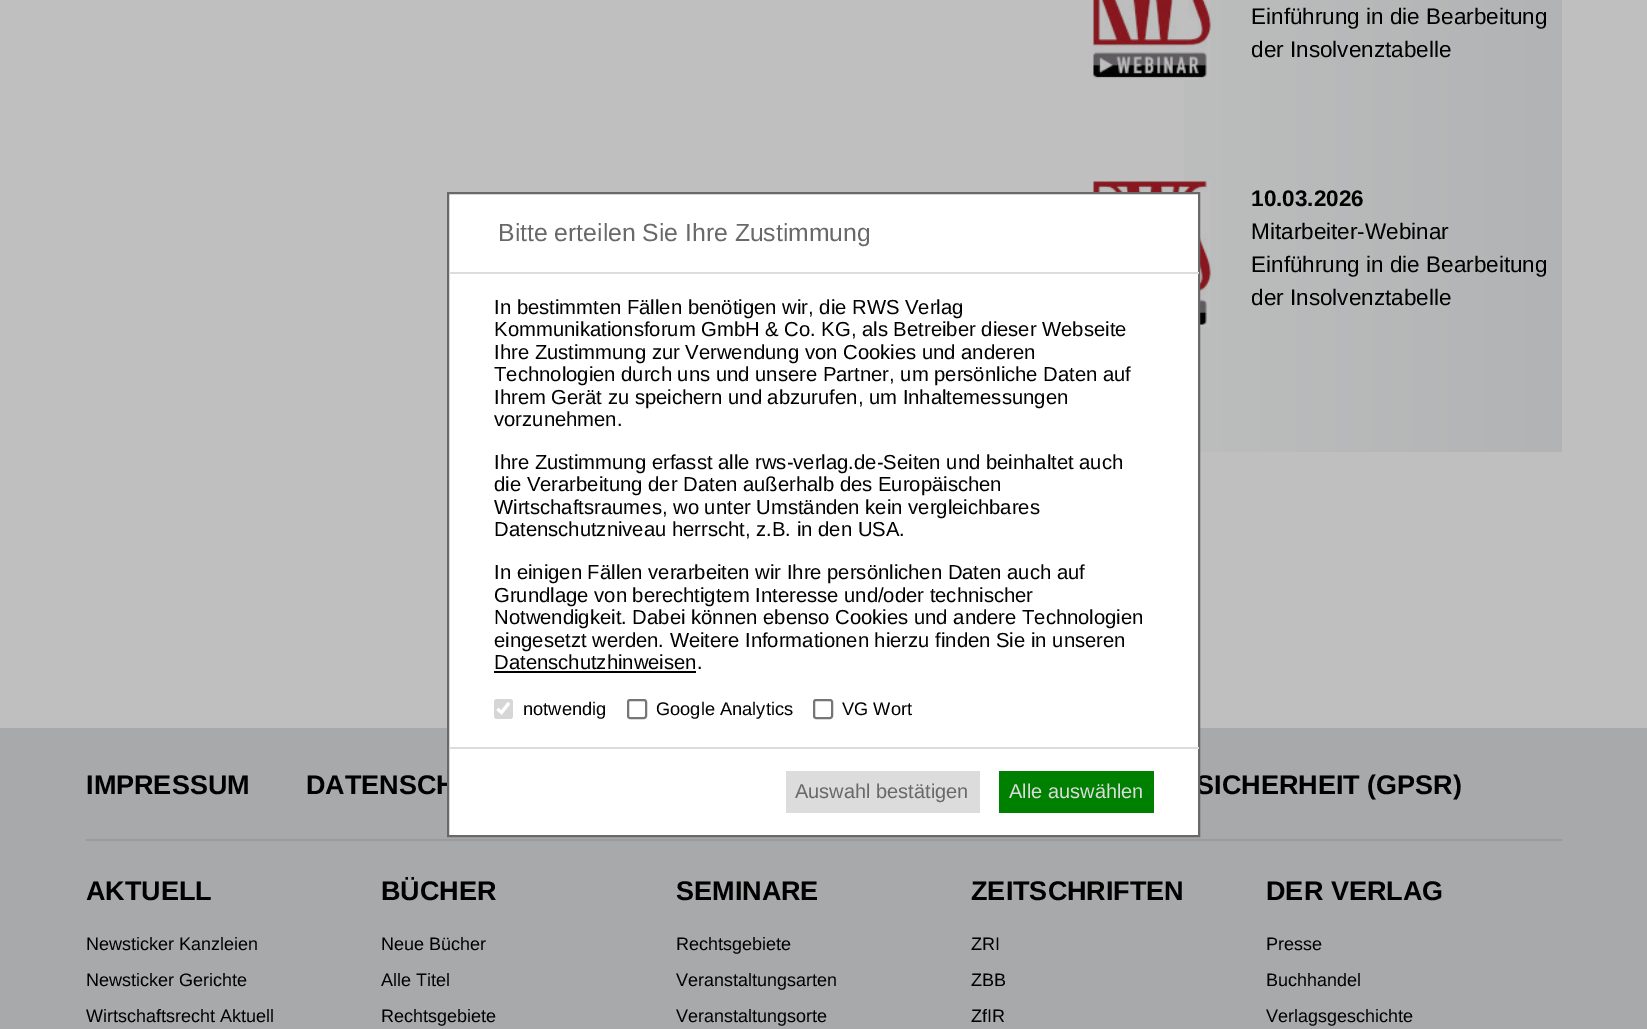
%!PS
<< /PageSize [1647 1029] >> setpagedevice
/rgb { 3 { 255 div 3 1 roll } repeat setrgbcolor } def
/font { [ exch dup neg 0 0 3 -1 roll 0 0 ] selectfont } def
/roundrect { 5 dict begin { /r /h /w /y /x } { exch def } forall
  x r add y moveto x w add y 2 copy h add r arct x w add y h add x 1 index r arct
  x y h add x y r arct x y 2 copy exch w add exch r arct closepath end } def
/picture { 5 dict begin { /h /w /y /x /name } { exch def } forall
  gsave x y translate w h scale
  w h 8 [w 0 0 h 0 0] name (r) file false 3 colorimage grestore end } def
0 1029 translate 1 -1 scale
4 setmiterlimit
191 191 191 rgb
0 0 1647 1029 rectfill
gsave 1184 0 moveto 1562 0 lineto 1562 452 lineto 1184 452 lineto closepath clip newpath
<< /ShadingType 2 /ColorSpace /DeviceRGB /Coords [1094 25 1562 25] /Extend [true true] /Function << /FunctionType 2 /Domain [0 1] /C0 [0.749 0.749 0.749] /C1 [0.698 0.702 0.706] /N 1 >> >> shfill grestore
(img/1.rgb) 1093 0 118 80 picture
(img/2.rgb) 1093 181 118 146 picture
168 169 170 rgb
0 728 1647 301 rectfill
155 155 155 rgb
86 839 1476 2 rectfill
/LiberationSans-Regular 22.5 font
0 0 0 rgb
1251 24 moveto (Einführung in die Bearbeitung) show
1251 57 moveto (der Insolvenztabelle) show
/LiberationSans-Bold 22.5 font
1251 206 moveto (10.03.2026) show
/LiberationSans-Regular 22.5 font
[
  [(Mitarbeiter-Webinar) 1251 239]
  [(Einführung in die Bearbeitung) 1251 272]
  [(der Insolvenztabelle) 1251 305]
] { aload pop moveto show } forall
/LiberationSans-Bold 27 font
[
  [(IMPRESSUM) 86 794]
  [(DATENSCH) 306 794]
  [(SICHERHEIT \(GPSR\)) 1196 794]
] { aload pop moveto show } forall
255 255 255 rgb
448 193 moveto 1199 193 lineto 1199 836 lineto 448 836 lineto closepath gsave fill grestore
105 105 105 rgb
2 setlinewidth
stroke
/LiberationSans-Regular 18.25 font
0 0 0 rgb
842 715 moveto (VG Wort) show
118 118 118 rgb
814 700 18 18 2 roundrect stroke
0 0 0 rgb
656 715 moveto (Google Analytics) show
118 118 118 rgb
628 700 18 18 2 roundrect stroke
0 0 0 rgb
523 715 moveto (notwendig) show
214 214 214 rgb
494 699 19 20 3 roundrect fill
255 255 255 rgb
3.1 setlinewidth
497.5 709 moveto 501.5 712.5 lineto 509 703 lineto stroke
/LiberationSans-Regular 20.25 font
0 0 0 rgb
494 669 moveto (Datenschutzhinweisen.) show
494 671 202 2 rectfill
[
  [(eingesetzt werden. Weitere Informationen hierzu finden Sie in unseren) 494 647]
  [(Notwendigkeit. Dabei können ebenso Cookies und andere Technologien) 494 624]
  [(Grundlage von berechtigtem Interesse und/oder technischer) 494 602]
  [(In einigen Fällen verarbeiten wir Ihre persönlichen Daten auch auf) 494 579]
  [(Datenschutzniveau herrscht, z.B. in den USA.) 494 536]
  [(Wirtschaftsraumes, wo unter Umständen kein vergleichbares) 494 514]
  [(die Verarbeitung der Daten außerhalb des Europäischen) 494 491]
  [(Ihre Zustimmung erfasst alle rws-verlag.de-Seiten und beinhaltet auch) 494 469]
  [(vorzunehmen.) 494 426]
  [(Ihrem Gerät zu speichern und abzurufen, um Inhaltemessungen) 494 404]
  [(Technologien durch uns und unsere Partner, um persönliche Daten auf) 494 381]
  [(Ihre Zustimmung zur Verwendung von Cookies und anderen) 494 359]
  [(Kommunikationsforum GmbH & Co. KG, als Betreiber dieser Webseite) 494 336]
  [(In bestimmten Fällen benötigen wir, die RWS Verlag) 494 314]
] { aload pop moveto show } forall
0 128 0 rgb
999 771 155 42 rectfill
/LiberationSans-Regular 20 font
220 220 220 rgb
1009 798 moveto (Alle auswählen) show
786 771 194 42 rectfill
105 105 105 rgb
795 798 moveto (Auswahl bestätigen) show
/LiberationSans-Regular 24.75 font
498 241 moveto (Bitte erteilen Sie Ihre Zustimmung) show
220 220 220 rgb
449 747 750 2 rectfill
449 272 750 2 rectfill
/LiberationSans-Bold 27 font
0 0 0 rgb
86 900 moveto (AKTUELL) show
/LiberationSans-Regular 18 font
[
  [(Newsticker Kanzleien) 86 950]
  [(Newsticker Gerichte) 86 986]
  [(Wirtschaftsrecht Aktuell) 86 1022]
] { aload pop moveto show } forall
/LiberationSans-Bold 27 font
381 900 moveto (BÜCHER) show
/LiberationSans-Regular 18 font
[
  [(Neue Bücher) 381 950]
  [(Alle Titel) 381 986]
  [(Rechtsgebiete) 381 1022]
] { aload pop moveto show } forall
/LiberationSans-Bold 27 font
676 900 moveto (SEMINARE) show
/LiberationSans-Regular 18 font
[
  [(Rechtsgebiete) 676 950]
  [(Veranstaltungsarten) 676 986]
  [(Veranstaltungsorte) 676 1022]
] { aload pop moveto show } forall
/LiberationSans-Bold 27 font
971 900 moveto (ZEITSCHRIFTEN) show
/LiberationSans-Regular 18 font
[
  [(ZRI) 971 950]
  [(ZBB) 971 986]
  [(ZfIR) 971 1022]
] { aload pop moveto show } forall
/LiberationSans-Bold 27 font
1266 900 moveto (DER VERLAG) show
/LiberationSans-Regular 18 font
[
  [(Presse) 1266 950]
  [(Buchhandel) 1266 986]
  [(Verlagsgeschichte) 1266 1022]
] { aload pop moveto show } forall
showpage
